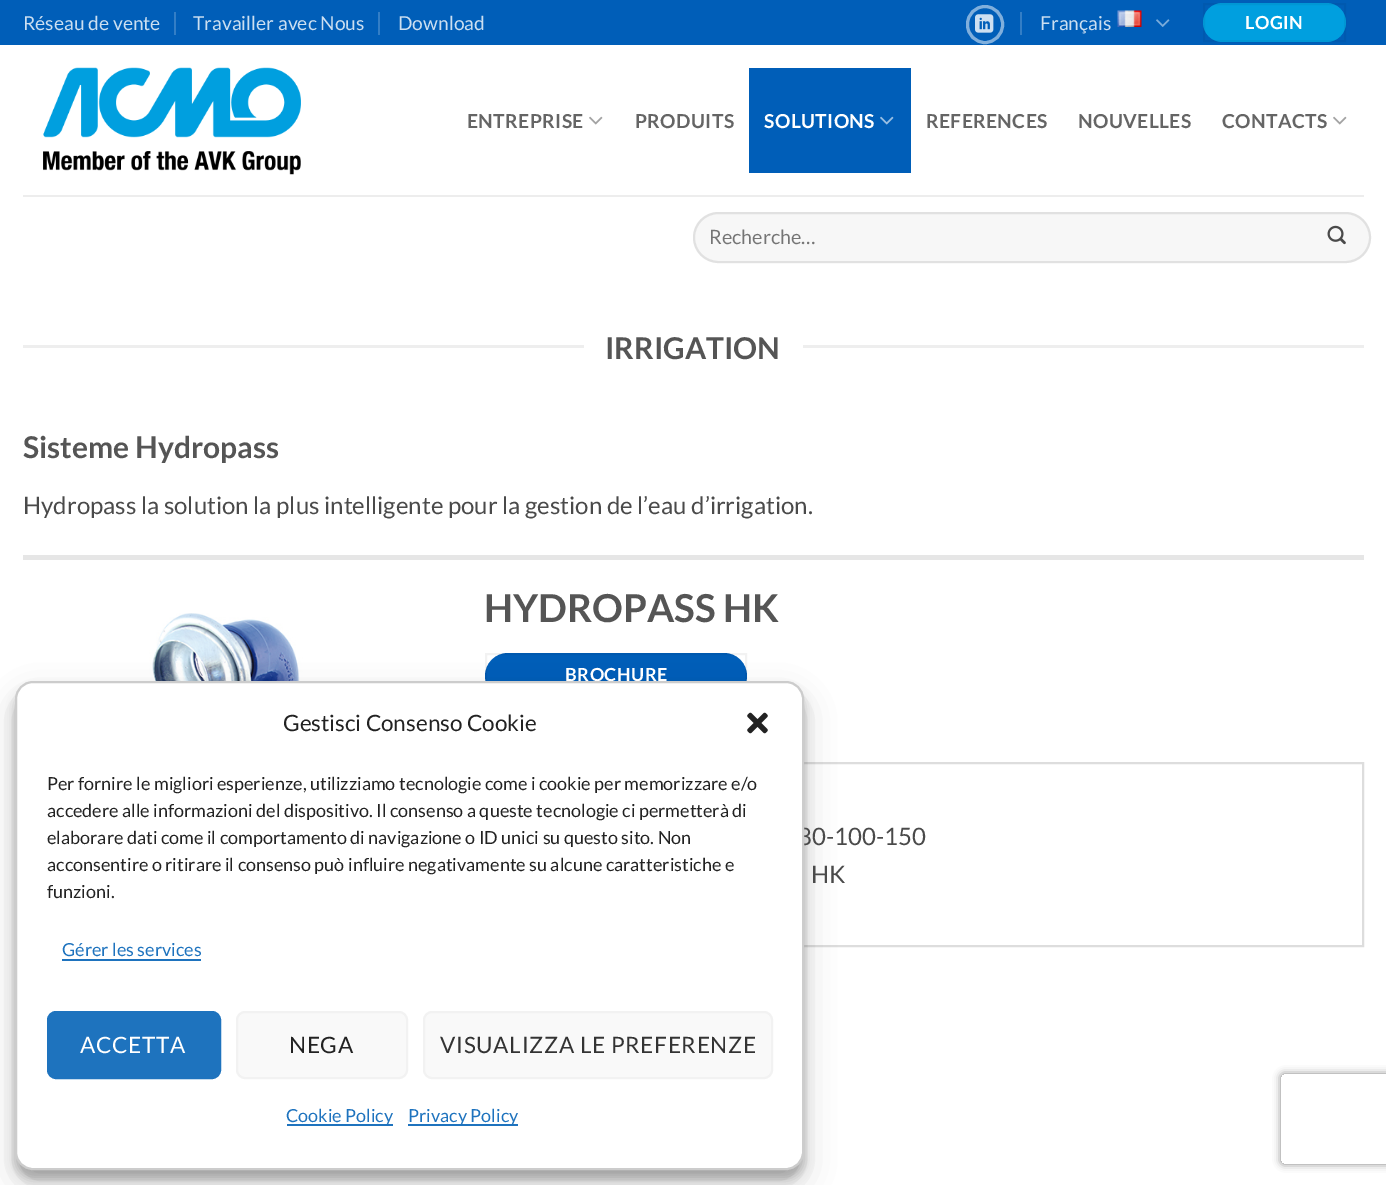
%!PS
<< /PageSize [1386 1185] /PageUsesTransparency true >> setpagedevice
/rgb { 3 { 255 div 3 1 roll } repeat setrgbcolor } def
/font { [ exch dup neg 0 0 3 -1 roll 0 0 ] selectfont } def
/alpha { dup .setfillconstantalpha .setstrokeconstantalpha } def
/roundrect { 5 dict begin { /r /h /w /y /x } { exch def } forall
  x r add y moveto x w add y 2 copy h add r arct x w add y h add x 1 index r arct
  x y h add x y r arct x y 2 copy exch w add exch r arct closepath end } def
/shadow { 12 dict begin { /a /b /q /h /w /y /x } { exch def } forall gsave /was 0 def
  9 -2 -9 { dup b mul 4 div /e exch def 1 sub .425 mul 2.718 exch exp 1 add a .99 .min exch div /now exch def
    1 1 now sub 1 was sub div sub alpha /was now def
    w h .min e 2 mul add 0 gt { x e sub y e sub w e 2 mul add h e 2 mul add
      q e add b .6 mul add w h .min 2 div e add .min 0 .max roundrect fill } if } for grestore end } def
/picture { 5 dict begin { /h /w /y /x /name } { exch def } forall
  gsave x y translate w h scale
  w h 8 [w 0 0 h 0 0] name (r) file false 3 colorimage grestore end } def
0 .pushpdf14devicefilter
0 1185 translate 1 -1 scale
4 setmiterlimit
255 255 255 rgb
0 0 1386 1185 rectfill
[
  [0 0 1386 45 0 94 184]
  [174 12 2 23 51 126 198]
  [378 12 2 23 51 126 198]
] { aload pop rgb rectfill } forall
128 175 220 rgb
3 setlinewidth
967.5 6.5 35 36 17.5 roundrect stroke
(img/1.rgb) 975 14 19 19 picture
51 126 198 rgb
1020 12 2 23 rectfill
(img/2.rgb) 1117 10 25 17 picture
(img/3.rgb) 1156 19 14 8 picture
0 159 223 rgb
1203 3 143 39 19.5 roundrect fill
0.05 alpha
0 0 0 rgb
2 setlinewidth
1204 4 141 37 rectstroke
1 alpha
(img/4.rgb) 43 67 258 108 picture
(img/5.rgb) 589 116 14 9 picture
0 94 184 rgb
749 68 162 105 rectfill
(img/6.rgb) 880 116 14 9 picture
(img/5.rgb) 1333 116 14 9 picture
237 237 237 rgb
23 195 1341 2 rectfill
247 247 247 rgb
693 212 678 51 25.5 roundrect fill
0.09 alpha
0 0 0 rgb
694 213 676 49 24.5 roundrect stroke
1 alpha
(img/7.rgb) 1327 225 19 20 picture
[
  [23 345 561 3 238 238 238]
  [803 345 561 3 238 238 238]
  [23 555 1341 5 230 230 230]
] { aload pop rgb rectfill } forall
(img/8.rgb) 98 613 270 68 picture
0 94 184 rgb
485 653 262 46 23 roundrect fill
0.05 alpha
0 0 0 rgb
486 654 260 44 rectstroke
1 alpha
221 221 221 rgb
705 763 658 183 rectstroke
0 0 0 rgb
15 690 789 489 18 4.5 0.23 shadow
15 696 789 489 18 15 0.19 shadow
gsave
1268 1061 moveto 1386 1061 lineto 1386 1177 lineto 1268 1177 lineto closepath 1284 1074 moveto 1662 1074 lineto 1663.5 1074 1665 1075.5 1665 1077 curveto 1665 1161 lineto 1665 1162.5 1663.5 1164 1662 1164 curveto 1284 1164 lineto 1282.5 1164 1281 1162.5 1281 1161 curveto 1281 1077 lineto 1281 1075.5 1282.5 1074 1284 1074 curveto closepath eoclip newpath
128 128 128 rgb
1281 1074 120 90 3 4 1 shadow
grestore
/Lato-Regular 19.25 font
204 223 241 rgb
[
  [(Réseau de vente) 23 30]
  [(Travailler avec Nous) 193 30]
  [(Download) 398 30]
  [(Français) 1040 30]
] { aload pop moveto show } forall
/Lato-Bold 18 font
255 255 255 rgb
1245 29 moveto 0.5 0 (LOGIN) ashow
/Lato-Bold 19.25 font
101 101 101 rgb
467 128 moveto 0.4 0 (ENTREPRISE) ashow
635 128 moveto 0.4 0 (PRODUITS) ashow
255 255 255 rgb
764 128 moveto 0.4 0 (SOLUTIONS) ashow
101 101 101 rgb
926 128 moveto 0.4 0 (REFERENCES) ashow
1078 128 moveto 0.4 0 (NOUVELLES) ashow
1222 128 moveto 0.4 0 (CONTACTS) ashow
/Lato-Regular 19.75 font
117 117 117 rgb
709 244 moveto (Recherche…) show
/Lato-Bold 30 font
85 85 85 rgb
605 359 moveto (IRRIGATION) show
23 458 moveto (Sisteme Hydropass) show
/Lato-Regular 24 font
74 74 74 rgb
23 514 moveto (Hydropass la solution la plus intelligente pour la gestion de l’eau d’irrigation.) show
/Lato-Bold 38.5 font
85 85 85 rgb
484 622 moveto (HYDROPASS HK) show
/Lato-Bold 18 font
255 255 255 rgb
565 681 moveto 0.5 0 (BROCHURE) ashow
/Lato-Regular 24 font
74 74 74 rgb
798 845 moveto (80-100-150) show
811 883 moveto (HK) show
255 255 255 rgb
16 682 787 487 17 roundrect gsave fill grestore
204 204 204 rgb
stroke
/Lato-Regular 22.5 font
34 34 34 rgb
283 731 moveto (Gestisci Consenso Cookie) show
(img/9.rgb) 747 712 21 22 picture
/Lato-Regular 18 font
[
  [(Per fornire le migliori esperienze, utilizziamo tecnologie come i cookie per memorizzare e/o) 47 790]
  [(accedere alle informazioni del dispositivo. Il consenso a queste tecnologie ci permetterà di) 47 817]
  [(elaborare dati come il comportamento di navigazione o ID unici su questo sito. Non) 47 844]
  [(acconsentire o ritirare il consenso può influire negativamente su alcune caratteristiche e) 47 871]
  [(funzioni.) 47 898]
] { aload pop moveto show } forall
30 115 190 rgb
62 956 moveto (Gérer les services) show
62 959 139 2 rectfill
48 1012 172 66 8 roundrect gsave fill grestore
stroke
/Lato-Regular 22.5 font
255 255 255 rgb
80 1053 moveto 0.7 0 (ACCETTA) ashow
249 249 249 rgb
237 1012 170 66 8 roundrect gsave fill grestore
242 242 242 rgb
stroke
34 34 34 rgb
289 1053 moveto 0.7 0 (NEGA) ashow
249 249 249 rgb
424 1012 348 66 8 roundrect gsave fill grestore
242 242 242 rgb
stroke
51 51 51 rgb
440 1053 moveto 0.7 0 (VISUALIZZA LE PREFERENZE) ashow
30 115 190 rgb
287 1124 106 2 rectfill
/Lato-Regular 18 font
286 1122 moveto (Cookie Policy) show
408 1124 110 2 rectfill
408 1122 moveto (Privacy Policy) show
.poppdf14devicefilter showpage
